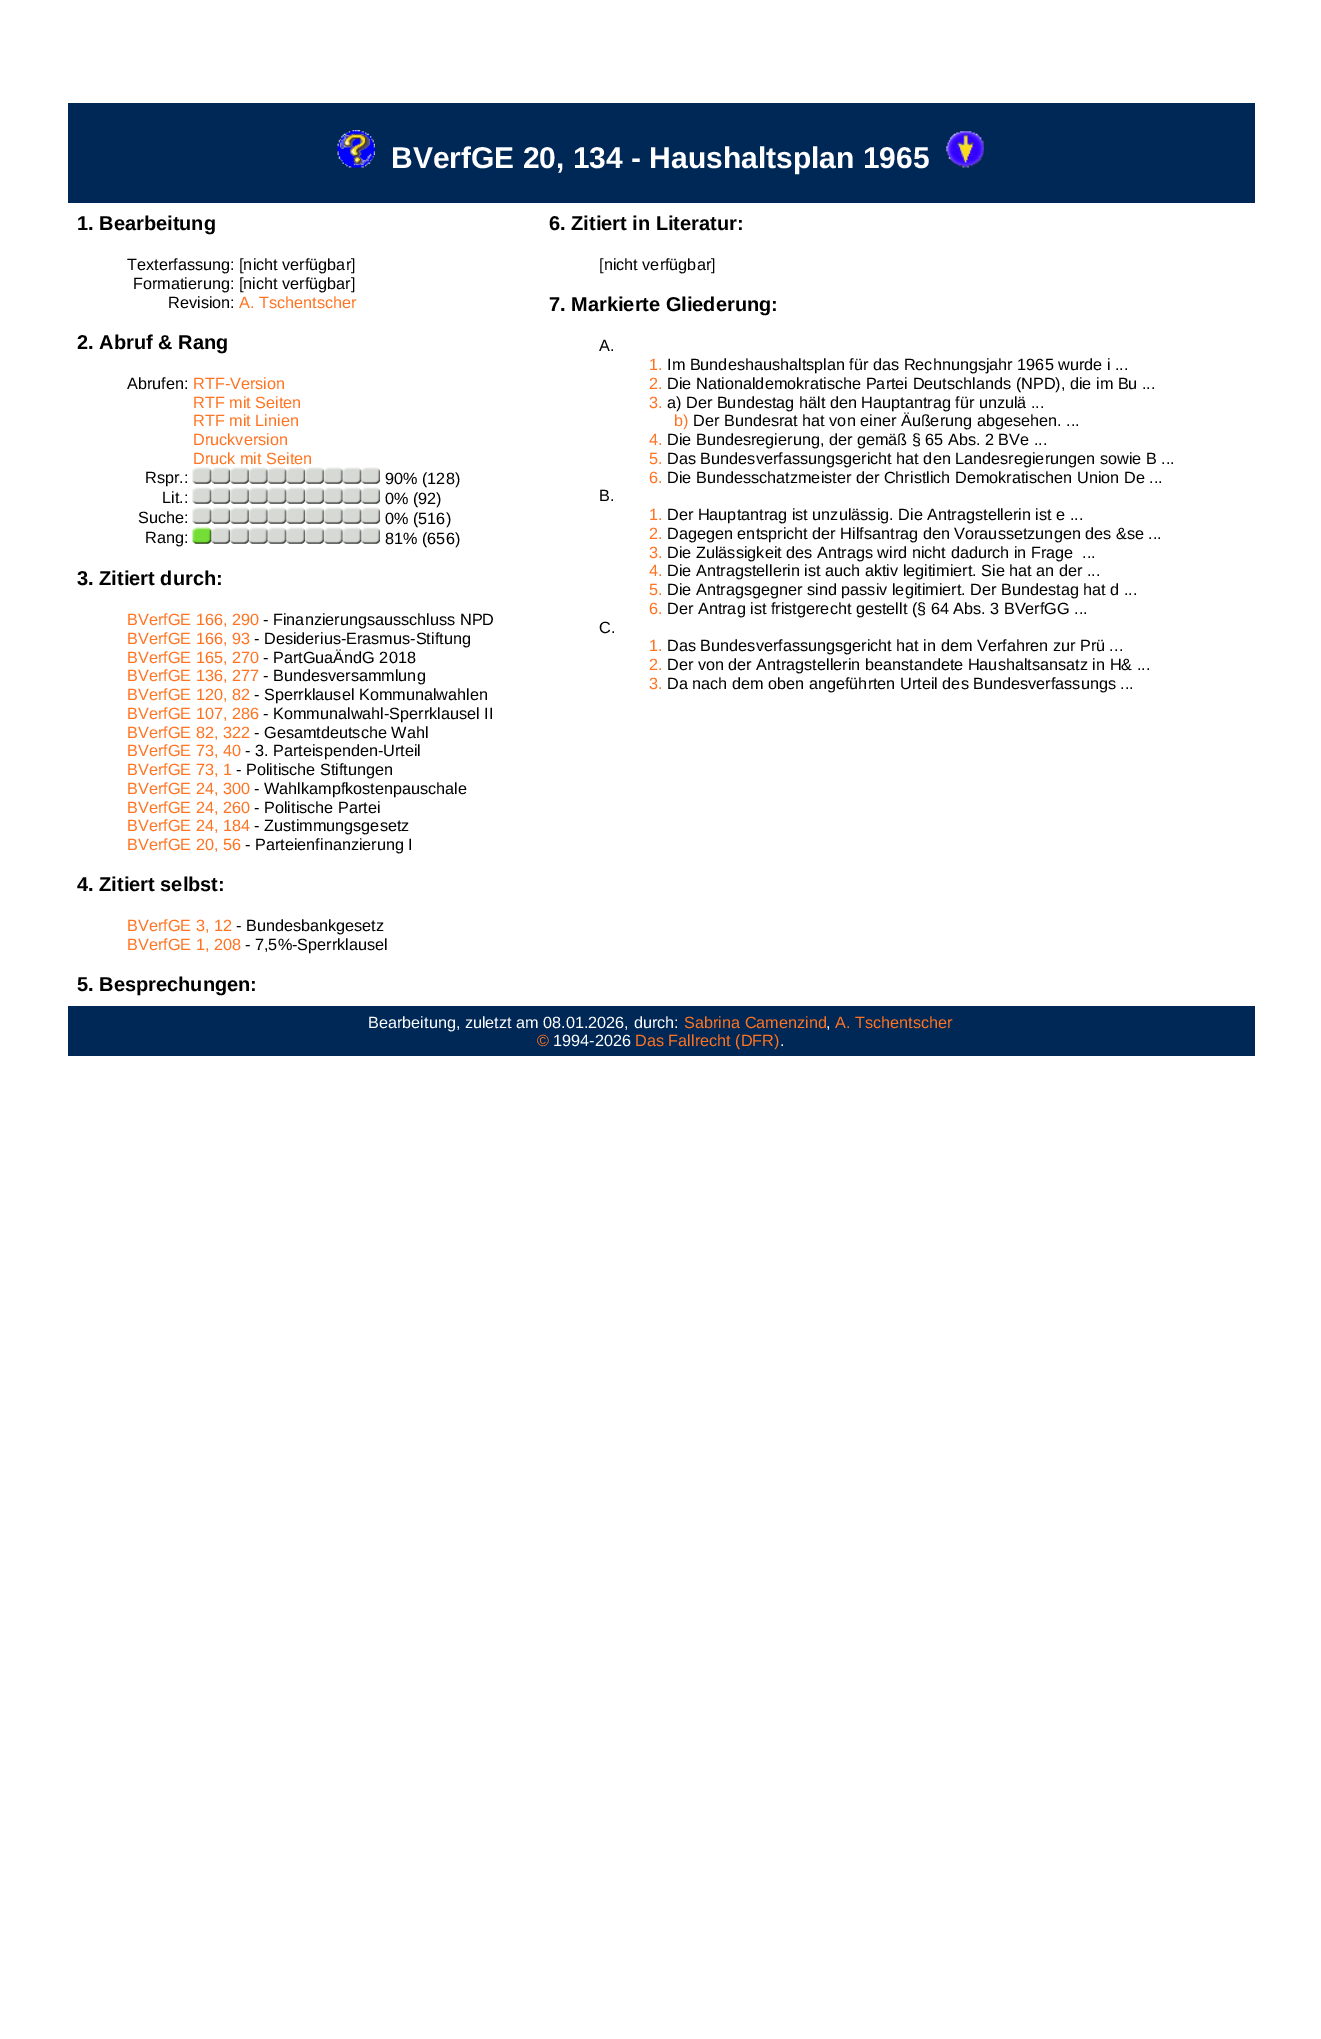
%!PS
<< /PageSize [1321 2039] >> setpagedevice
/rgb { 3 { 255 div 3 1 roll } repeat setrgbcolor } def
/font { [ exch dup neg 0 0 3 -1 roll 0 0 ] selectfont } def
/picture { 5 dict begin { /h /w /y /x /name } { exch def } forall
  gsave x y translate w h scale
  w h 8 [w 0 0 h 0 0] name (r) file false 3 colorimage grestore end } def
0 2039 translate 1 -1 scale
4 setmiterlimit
255 255 255 rgb
0 0 1321 2039 rectfill
0 40 86 rgb
68 103 1187 100 rectfill
(img/1.rgb) 337 130 38 38 picture
(img/2.rgb) 946 131 38 37 picture
(img/3.rgb) 192 467 188 17 picture
(img/3.rgb) 192 487 188 17 picture
(img/3.rgb) 192 507 188 17 picture
(img/4.rgb) 192 527 188 17 picture
68 1006 1187 50 rectfill
/LiberationSans-Bold 30 font
255 255 255 rgb
391 168 moveto (BVerfGE 20, 134 - Haushaltsplan 1965) show
/LiberationSans-Bold 20 font
0 0 0 rgb
77 230 moveto (1. Bearbeitung) show
/LiberationSans-Regular 16.25 font
[
  [(Texterfassung: [nicht verfügbar]) 127 270]
  [(Formatierung: [nicht verfügbar]) 133 289]
  [(Revision:) 168 308]
] { aload pop moveto show } forall
255 115 33 rgb
239 308 moveto (A. Tschentscher) show
/LiberationSans-Bold 20 font
0 0 0 rgb
77 349 moveto (2. Abruf & Rang) show
/LiberationSans-Regular 16.25 font
127 389 moveto (Abrufen:) show
255 115 33 rgb
[
  [(RTF-Version) 193 389]
  [(RTF mit Seiten) 193 408]
  [(RTF mit Linien) 193 426]
  [(Druckversion) 193 445]
  [(Druck mit Seiten) 193 464]
] { aload pop moveto show } forall
0 0 0 rgb
[
  [(Rspr.:) 145 483]
  [(90% \(128\)) 385 484]
  [(Lit.:) 162 503]
  [(0% \(92\)) 385 504]
  [(Suche:) 138 523]
  [(0% \(516\)) 385 524]
  [(Rang:) 145 543]
  [(81% \(656\)) 385 544]
] { aload pop moveto show } forall
/LiberationSans-Bold 20 font
77 585 moveto (3. Zitiert durch:) show
/LiberationSans-Regular 16.25 font
255 115 33 rgb
127 625 moveto (BVerfGE 166, 290) show
0 0 0 rgb
263 625 moveto (- Finanzierungsausschluss NPD) show
255 115 33 rgb
127 644 moveto (BVerfGE 166, 93) show
0 0 0 rgb
254 644 moveto (- Desiderius-Erasmus-Stiftung) show
255 115 33 rgb
127 663 moveto (BVerfGE 165, 270) show
0 0 0 rgb
263 663 moveto (- PartGuaÄndG 2018) show
255 115 33 rgb
127 681 moveto (BVerfGE 136, 277) show
0 0 0 rgb
263 681 moveto (- Bundesversammlung) show
255 115 33 rgb
127 700 moveto (BVerfGE 120, 82) show
0 0 0 rgb
254 700 moveto (- Sperrklausel Kommunalwahlen) show
255 115 33 rgb
127 719 moveto (BVerfGE 107, 286) show
0 0 0 rgb
263 719 moveto (- Kommunalwahl-Sperrklausel II) show
255 115 33 rgb
127 738 moveto (BVerfGE 82, 322) show
0 0 0 rgb
254 738 moveto (- Gesamtdeutsche Wahl) show
255 115 33 rgb
127 756 moveto (BVerfGE 73, 40) show
0 0 0 rgb
245 756 moveto (- 3. Parteispenden-Urteil) show
255 115 33 rgb
127 775 moveto (BVerfGE 73, 1) show
0 0 0 rgb
236 775 moveto (- Politische Stiftungen) show
255 115 33 rgb
127 794 moveto (BVerfGE 24, 300) show
0 0 0 rgb
254 794 moveto (- Wahlkampfkostenpauschale) show
255 115 33 rgb
127 813 moveto (BVerfGE 24, 260) show
0 0 0 rgb
254 813 moveto (- Politische Partei) show
255 115 33 rgb
127 831 moveto (BVerfGE 24, 184) show
0 0 0 rgb
254 831 moveto (- Zustimmungsgesetz) show
255 115 33 rgb
127 850 moveto (BVerfGE 20, 56) show
0 0 0 rgb
245 850 moveto (- Parteienfinanzierung I) show
/LiberationSans-Bold 20 font
77 891 moveto (4. Zitiert selbst:) show
/LiberationSans-Regular 16.25 font
255 115 33 rgb
127 931 moveto (BVerfGE 3, 12) show
0 0 0 rgb
236 931 moveto (- Bundesbankgesetz) show
255 115 33 rgb
127 950 moveto (BVerfGE 1, 208) show
0 0 0 rgb
245 950 moveto (- 7,5%-Sperrklausel) show
/LiberationSans-Bold 20 font
77 991 moveto (5. Besprechungen:) show
549 230 moveto (6. Zitiert in Literatur:) show
/LiberationSans-Regular 16.25 font
599 270 moveto ([nicht verfügbar]) show
/LiberationSans-Bold 20 font
549 311 moveto (7. Markierte Gliederung:) show
/LiberationSans-Regular 16.25 font
599 351 moveto (A.) show
255 115 33 rgb
649 370 moveto (1.) show
0 0 0 rgb
667 370 moveto (Im Bundeshaushaltsplan für das Rechnungsjahr 1965 wurde i ...) show
255 115 33 rgb
649 389 moveto (2.) show
0 0 0 rgb
667 389 moveto (Die Nationaldemokratische Partei Deutschlands \(NPD\), die im Bu ...) show
255 115 33 rgb
649 408 moveto (3.) show
0 0 0 rgb
667 408 moveto (a\) Der Bundestag hält den Hauptantrag für unzulä ...) show
255 115 33 rgb
674 426 moveto (b\)) show
0 0 0 rgb
693 426 moveto (Der Bundesrat hat von einer Äußerung abgesehen. ...) show
255 115 33 rgb
649 445 moveto (4.) show
0 0 0 rgb
667 445 moveto (Die Bundesregierung, der gemäß § 65 Abs. 2 BVe ...) show
255 115 33 rgb
649 464 moveto (5.) show
0 0 0 rgb
667 464 moveto (Das Bundesverfassungsgericht hat den Landesregierungen sowie B ...) show
255 115 33 rgb
649 483 moveto (6.) show
0 0 0 rgb
667 483 moveto (Die Bundesschatzmeister der Christlich Demokratischen Union De ...) show
599 501 moveto (B.) show
255 115 33 rgb
649 520 moveto (1.) show
0 0 0 rgb
667 520 moveto (Der Hauptantrag ist unzulässig. Die Antragstellerin ist e ...) show
255 115 33 rgb
649 539 moveto (2.) show
0 0 0 rgb
667 539 moveto (Dagegen entspricht der Hilfsantrag den Voraussetzungen des &se ...) show
255 115 33 rgb
649 558 moveto (3.) show
0 0 0 rgb
667 558 moveto (Die Zulässigkeit des Antrags wird nicht dadurch in Frage  ...) show
255 115 33 rgb
649 576 moveto (4.) show
0 0 0 rgb
667 576 moveto (Die Antragstellerin ist auch aktiv legitimiert. Sie hat an der ...) show
255 115 33 rgb
649 595 moveto (5.) show
0 0 0 rgb
667 595 moveto (Die Antragsgegner sind passiv legitimiert. Der Bundestag hat d ...) show
255 115 33 rgb
649 614 moveto (6.) show
0 0 0 rgb
667 614 moveto (Der Antrag ist fristgerecht gestellt \(§ 64 Abs. 3 BVerfGG ...) show
599 633 moveto (C.) show
255 115 33 rgb
649 651 moveto (1.) show
0 0 0 rgb
667 651 moveto (Das Bundesverfassungsgericht hat in dem Verfahren zur Prü ...) show
255 115 33 rgb
649 670 moveto (2.) show
0 0 0 rgb
667 670 moveto (Der von der Antragstellerin beanstandete Haushaltsansatz in H& ...) show
255 115 33 rgb
649 689 moveto (3.) show
0 0 0 rgb
667 689 moveto (Da nach dem oben angeführten Urteil des Bundesverfassungs ...) show
255 255 255 rgb
368 1028 moveto (Bearbeitung, zuletzt am 08.01.2026, durch:) show
255 115 33 rgb
684 1028 moveto (Sabrina Camenzind) show
255 255 255 rgb
826 1028 moveto (,) show
255 115 33 rgb
835 1028 moveto (A. Tschentscher) show
537 1046 moveto (©) show
255 255 255 rgb
553 1046 moveto (1994-2026) show
255 115 33 rgb
635 1046 moveto (Das Fallrecht \(DFR\)) show
255 255 255 rgb
780 1046 moveto (.) show
showpage
